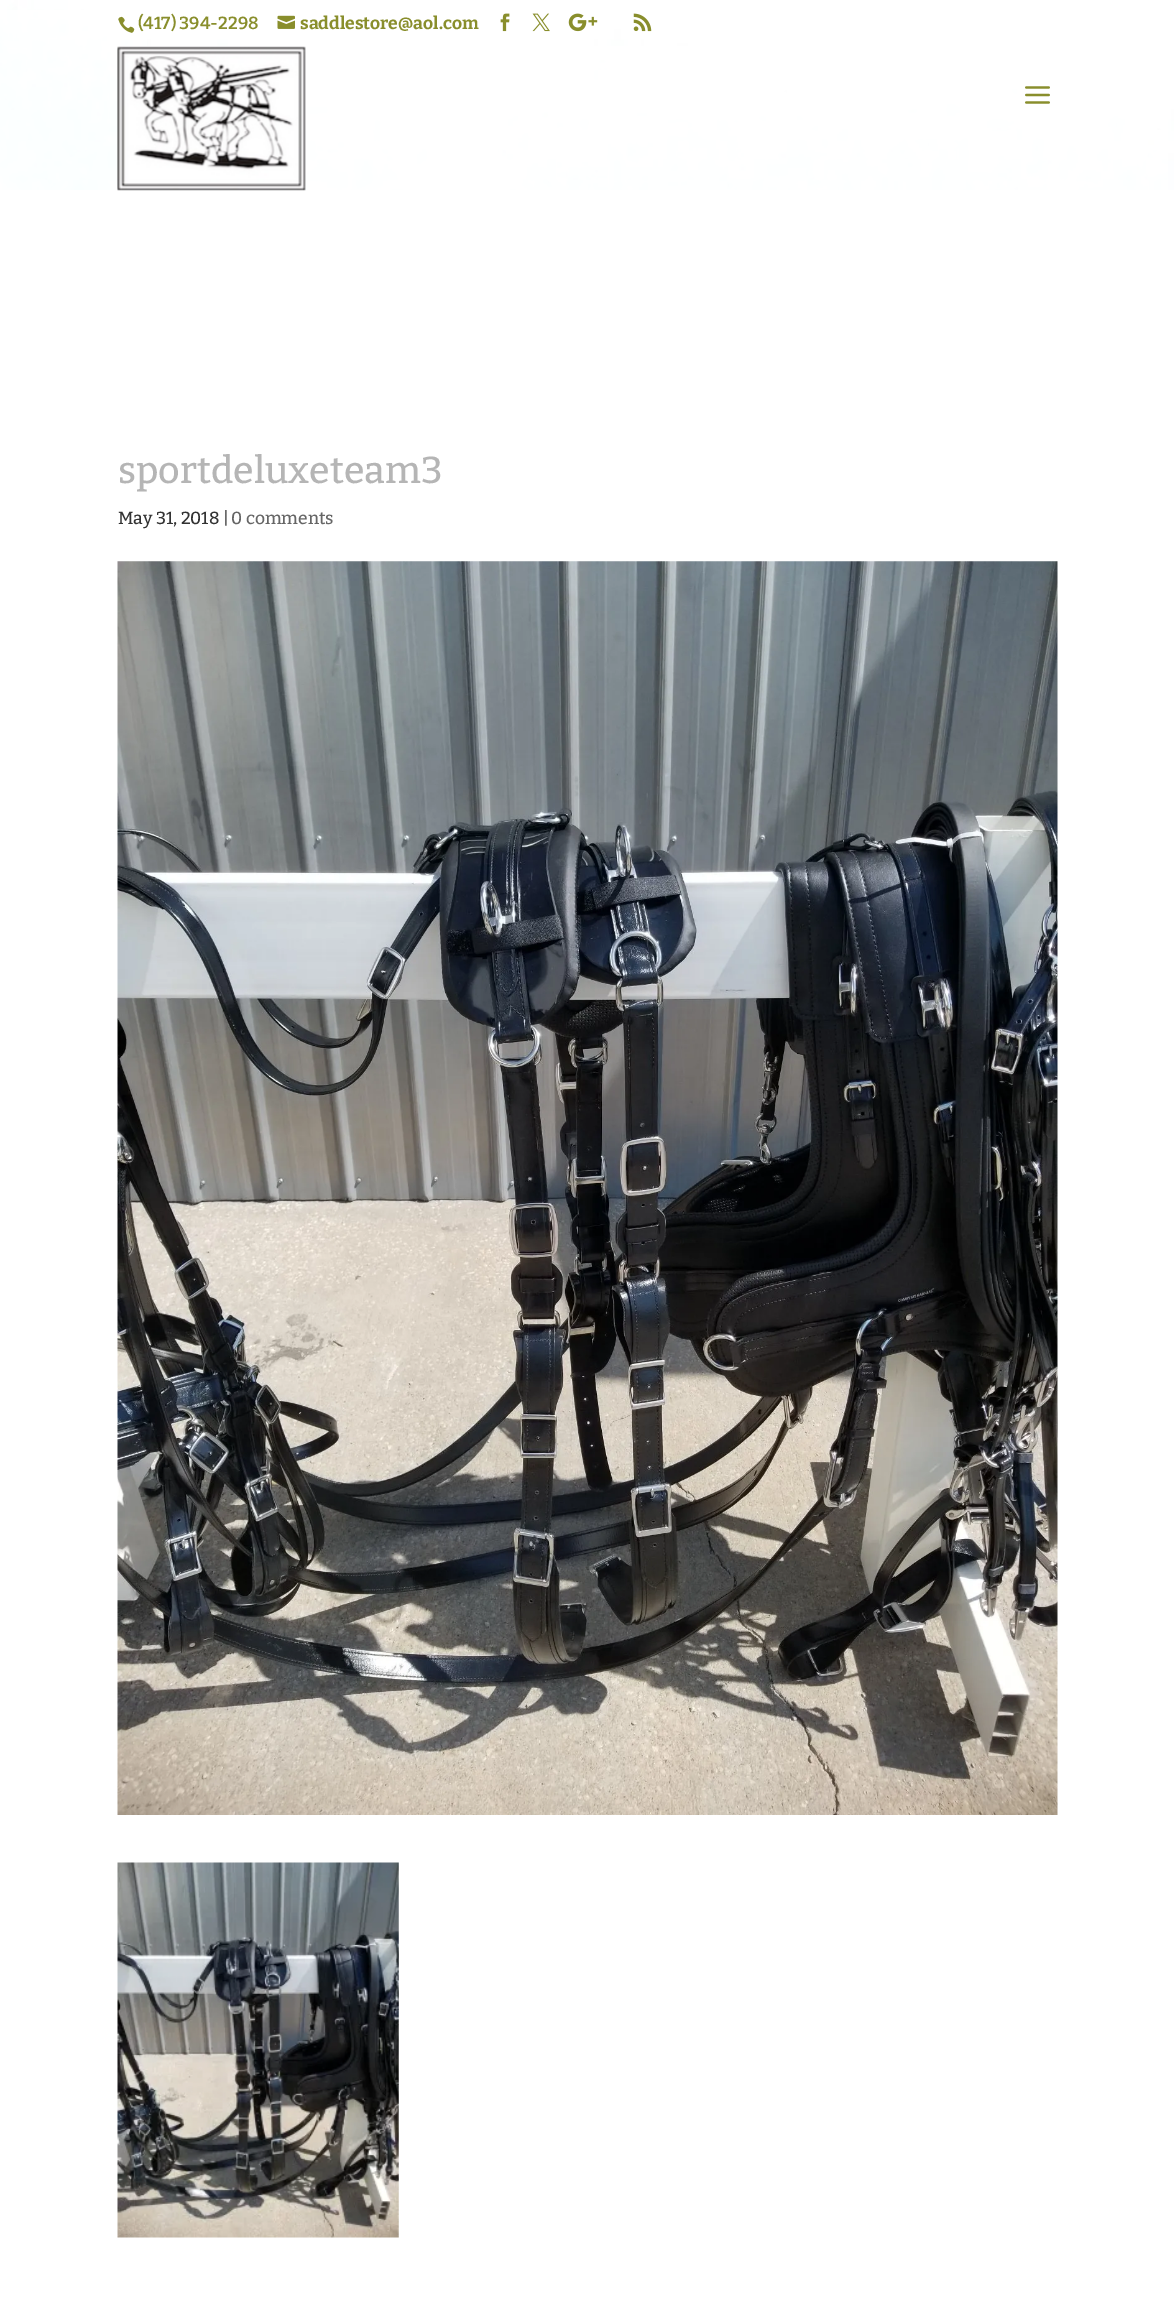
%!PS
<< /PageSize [1174 2302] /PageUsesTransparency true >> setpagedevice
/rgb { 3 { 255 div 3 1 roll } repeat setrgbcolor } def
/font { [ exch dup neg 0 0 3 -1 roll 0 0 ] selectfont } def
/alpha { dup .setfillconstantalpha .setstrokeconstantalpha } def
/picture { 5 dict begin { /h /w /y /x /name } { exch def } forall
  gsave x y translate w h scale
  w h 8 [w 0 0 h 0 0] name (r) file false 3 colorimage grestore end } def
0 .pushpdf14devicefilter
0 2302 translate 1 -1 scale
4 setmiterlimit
255 255 255 rgb
0 0 1174 2302 rectfill
(img/1.rgb) 0 0 1174 190 picture
0.77 alpha
0 10 147 36 rectfill
1 alpha
(img/2.rgb) 118 16 17 17 picture
(img/3.rgb) 277 15 18 14 picture
(img/4.rgb) 500 13 10 19 picture
(img/5.rgb) 532 13 18 19 picture
(img/6.rgb) 568 13 30 19 picture
(img/7.rgb) 633 13 19 19 picture
0.77 alpha
0 46 1168 144 rectfill
1 alpha
(img/8.rgb) 117 46 189 145 picture
(img/9.rgb) 1025 86 25 18 picture
(img/10.rgb) 117 561 941 1254 picture
(img/11.rgb) 117 1862 282 376 picture
/Bitter-SemiBold 17.5 font
137 142 44 rgb
138 29 moveto (\(417\) 394-2298) show
/Bitter-Bold 17.5 font
300 29 moveto (saddlestore@aol.com) show
/Bitter-Medium 37.5 font
181 181 181 rgb
118 483 moveto (sportdeluxeteam3) show
/Bitter-Medium 17.5 font
51 51 51 rgb
118 524 moveto (May 31, 2018 |) show
102 102 102 rgb
231 524 moveto (0 comments) show
.poppdf14devicefilter showpage
